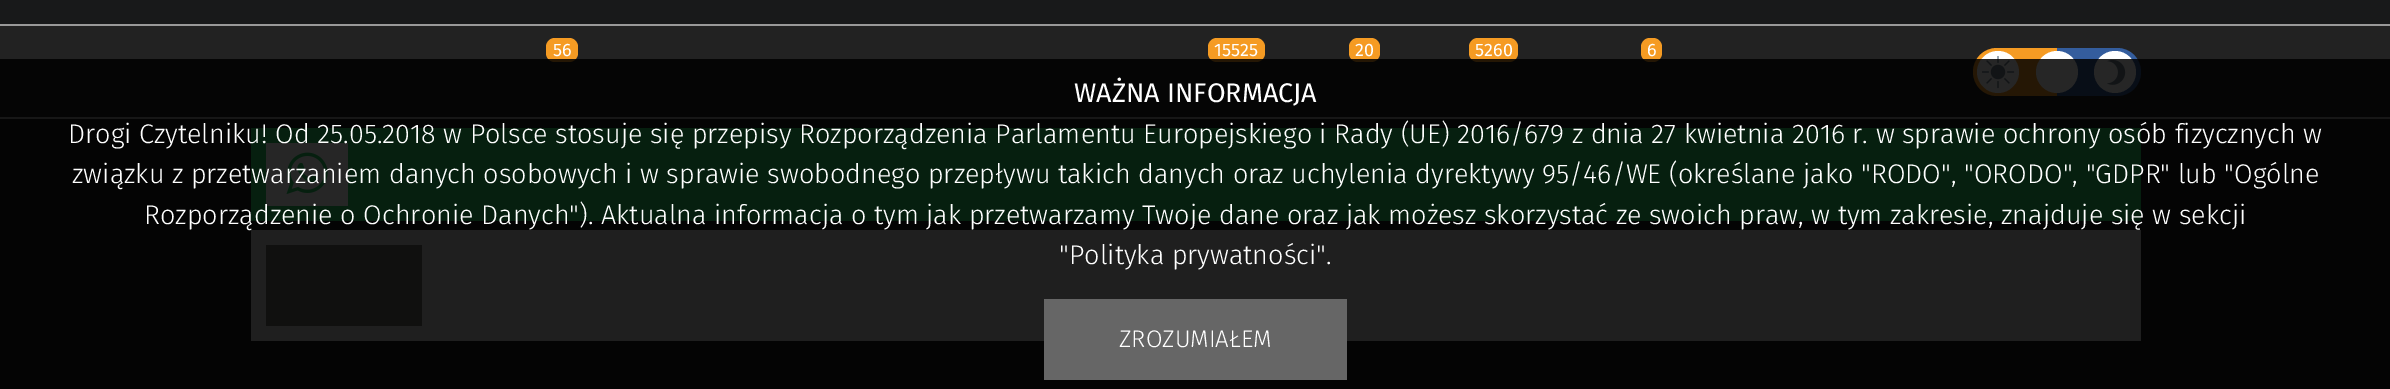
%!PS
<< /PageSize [2390 389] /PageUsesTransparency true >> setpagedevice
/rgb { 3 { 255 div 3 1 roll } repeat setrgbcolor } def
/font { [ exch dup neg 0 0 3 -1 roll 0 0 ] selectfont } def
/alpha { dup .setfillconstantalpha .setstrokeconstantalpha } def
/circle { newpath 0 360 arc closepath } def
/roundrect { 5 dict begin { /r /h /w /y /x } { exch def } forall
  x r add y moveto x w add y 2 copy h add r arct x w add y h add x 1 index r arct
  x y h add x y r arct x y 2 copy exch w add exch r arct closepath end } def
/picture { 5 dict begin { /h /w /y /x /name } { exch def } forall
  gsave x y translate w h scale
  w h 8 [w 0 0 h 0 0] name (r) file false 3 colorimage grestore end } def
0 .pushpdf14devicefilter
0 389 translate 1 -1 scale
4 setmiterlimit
24 25 26 rgb
0 0 2390 389 rectfill
[
  [0 26 2390 91 34 34 34]
  [0 24 2390 2 153 153 153]
  [0 117 2390 2 153 153 153]
] { aload pop rgb rectfill } forall
245 155 35 rgb
546 38 32 24 9 roundrect fill
1208 38 57 24 9 roundrect fill
1349 38 31 24 9 roundrect fill
1469 38 49 24 9 roundrect fill
1641 38 21 24 9 roundrect fill
1997 48 moveto 2057 48 lineto 2057 96 lineto 1997 96 lineto 1983.5 96 1973 85.5 1973 72 curveto 1973 58.5 1983.5 48 1997 48 curveto closepath fill
52 93 157 rgb
2057 48 moveto 2117 48 lineto 2130.5 48 2141 58.5 2141 72 curveto 2141 85.5 2130.5 96 2117 96 curveto 2057 96 lineto closepath fill
255 255 255 rgb
1998 72 21 circle fill
(img/1.rgb) 1982 56 33 33 picture
2057 72 21 circle fill
2115 72 21 circle fill
(img/2.rgb) 2107 59 19 26 picture
37 211 102 rgb
251 128 1890 93 rectfill
255 255 255 rgb
266 143 82 63 rectfill
(img/3.rgb) 286 152 42 42 picture
[
  [251 230 1890 111 210 210 209]
  [266 245 156 81 109 107 103]
] { aload pop rgb rectfill } forall
0.85 alpha
[
  [0 59 2390 330 0 0 0]
] { aload pop rgb rectfill } forall
1 alpha
[
  [1044 299 303 81 102 102 102]
] { aload pop rgb rectfill } forall
/FiraSans-Regular 18 font
255 255 255 rgb
[
  [(56) 553 56]
  [(15525) 1214 56]
  [(20) 1355 56]
  [(5260) 1475 56]
  [(6) 1647 56]
] { aload pop moveto show } forall
/FiraSans-Regular 27 font
1074 102 moveto (WAŻNA INFORMACJA) show
/FiraSans-Light 27 font
[
  [(Drogi Czytelniku! Od 25.05.2018 w Polsce stosuje się przepisy Rozporządzenia Parlamentu Europejskiego i Rady \(UE\) 2016/679 z dnia 27 kwietnia 2016 r. w sprawie ochrony osób fizycznych w) 68 143]
  [(związku z przetwarzaniem danych osobowych i w sprawie swobodnego przepływu takich danych oraz uchylenia dyrektywy 95/46/WE \(określane jako "RODO", "ORODO", "GDPR" lub "Ogólne) 72 183]
  [(Rozporządzenie o Ochronie Danych"\). Aktualna informacja o tym jak przetwarzamy Twoje dane oraz jak możesz skorzystać ze swoich praw, w tym zakresie, znajduje się w sekcji) 144 224]
  [("Polityka prywatności".) 1059 264]
] { aload pop moveto show } forall
/FiraSans-Light 24 font
1119 347 moveto (ZROZUMIAŁEM) show
.poppdf14devicefilter showpage
